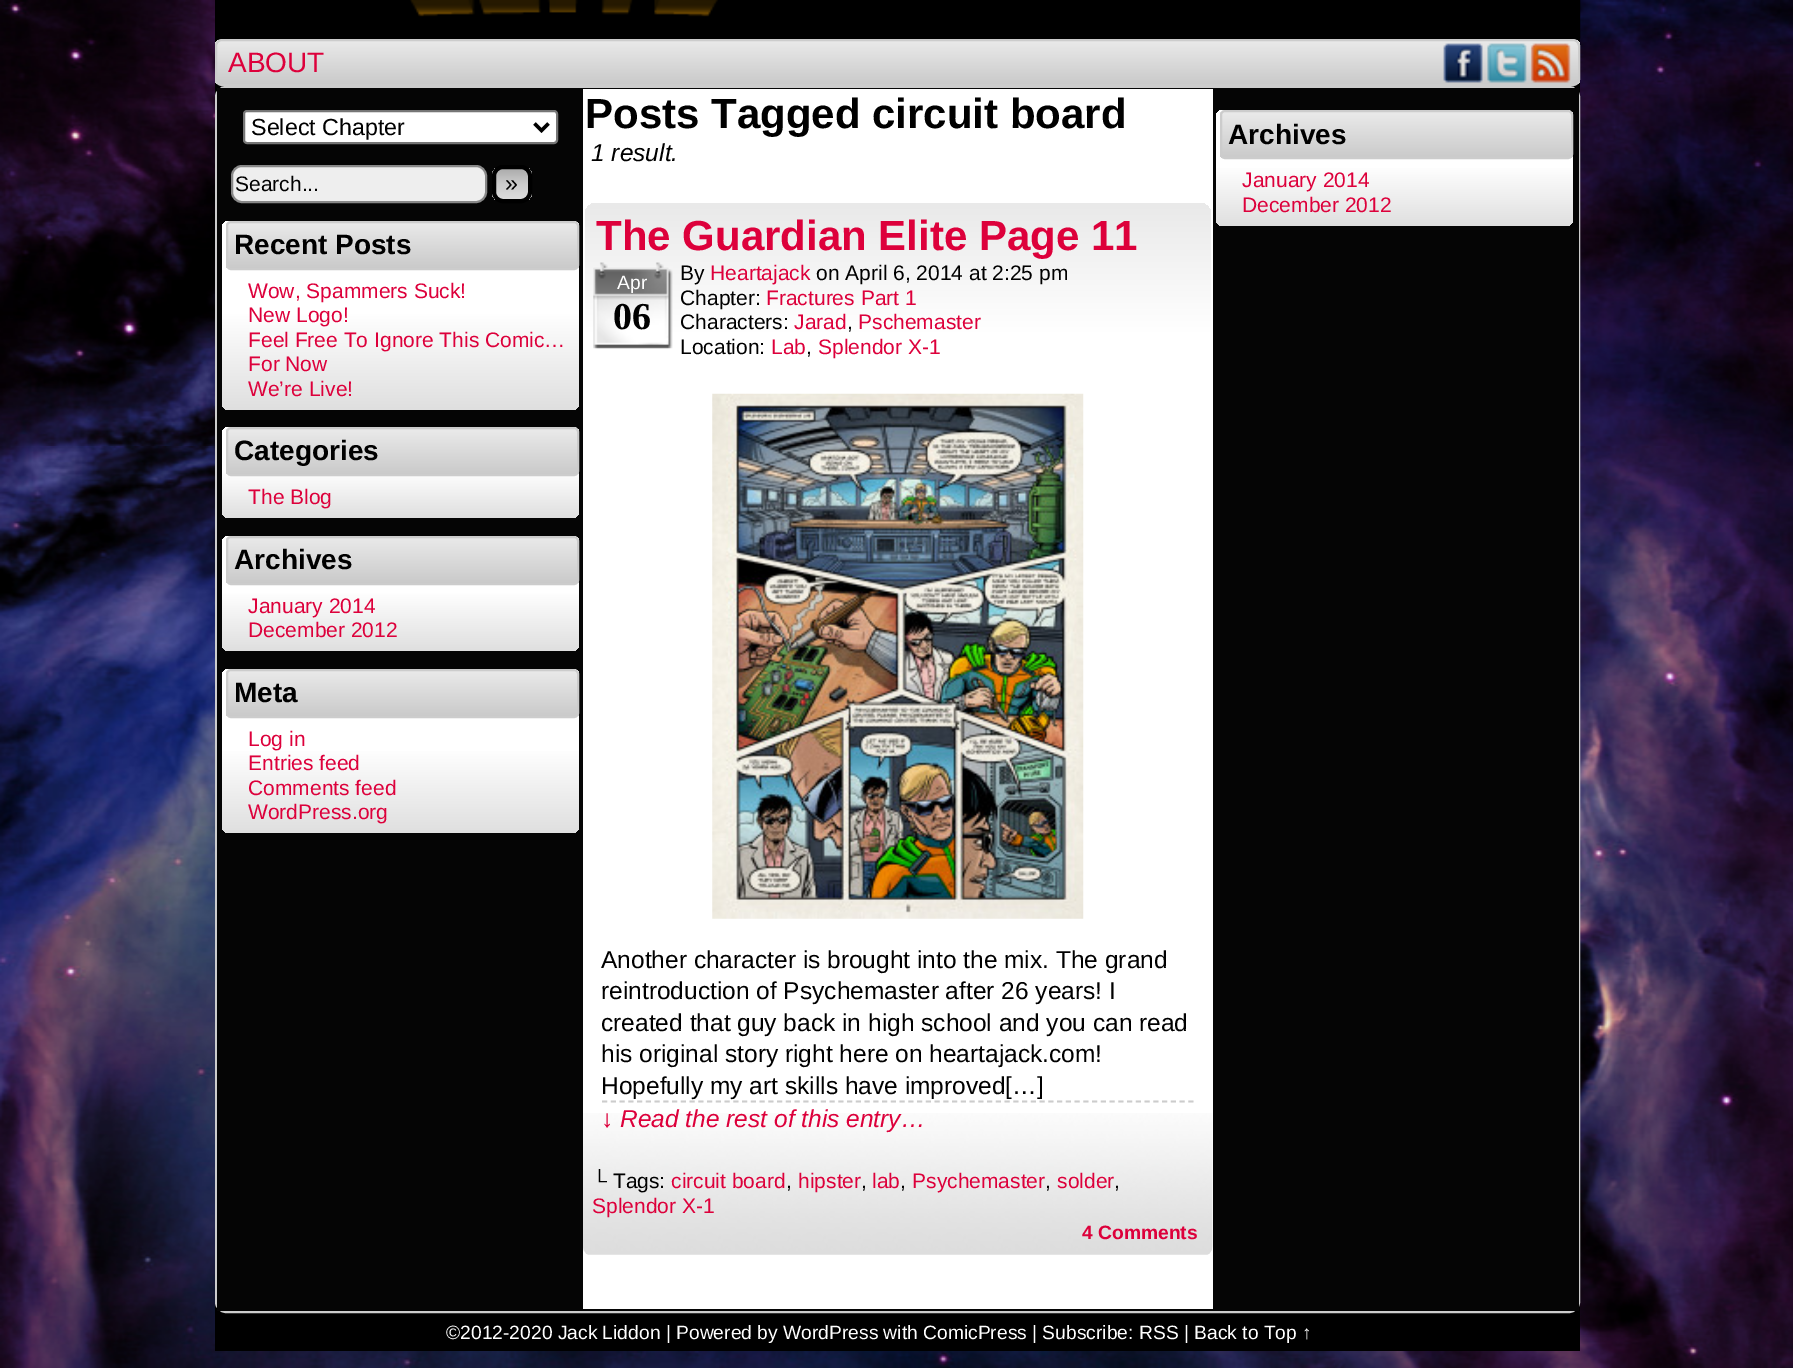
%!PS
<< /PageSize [1793 1368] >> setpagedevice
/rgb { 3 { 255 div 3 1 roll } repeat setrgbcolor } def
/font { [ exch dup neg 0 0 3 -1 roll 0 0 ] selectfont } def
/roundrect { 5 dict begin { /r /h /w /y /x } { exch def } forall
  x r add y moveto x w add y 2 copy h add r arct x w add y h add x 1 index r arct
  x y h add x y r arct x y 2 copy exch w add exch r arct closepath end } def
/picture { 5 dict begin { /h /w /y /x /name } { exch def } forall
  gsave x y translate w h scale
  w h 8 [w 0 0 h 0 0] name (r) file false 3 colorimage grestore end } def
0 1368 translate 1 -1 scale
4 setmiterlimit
255 255 255 rgb
0 0 1793 1368 rectfill
(img/1.rgb) 0 0 1793 1368 picture
0 0 0 rgb
215 0 1365 1351 rectfill
(img/2.rgb) 410 0 1171 39 picture
gsave
215 39 1365 47 7 roundrect clip newpath
gsave 215 40 moveto 1580 40 lineto 1580 84 lineto 215 84 lineto closepath clip newpath
<< /ShadingType 2 /ColorSpace /DeviceRGB /Coords [898 40 898 84] /Extend [true true] /Function << /FunctionType 2 /Domain [0 1] /C0 [0.918 0.918 0.918] /C1 [0.792 0.792 0.792] /N 1 >> >> shfill grestore
grestore
204 204 204 rgb
2 setlinewidth
216 40 1363 45 6 roundrect stroke
(img/3.rgb) 1443 43 40 40 picture
(img/4.rgb) 1487 43 40 40 picture
(img/5.rgb) 1530 43 41 40 picture
216 87 1363 1225 10 roundrect stroke
5 5 5 rgb
217 88 1362 1223 rectfill
255 255 255 rgb
244 111 313 32 3 roundrect gsave fill grestore
118 118 118 rgb
stroke
0 0 0 rgb
3.5 setlinewidth
534.5 123.5 moveto 541.5 130.5 lineto 548.5 123.5 lineto stroke
238 238 238 rgb
232 166 254 36 10 roundrect gsave fill grestore
136 136 136 rgb
2 setlinewidth
stroke
gsave
492 165 40 38 11 roundrect clip newpath
gsave 492 168 moveto 532 168 lineto 532 200 lineto 492 200 lineto closepath clip newpath
<< /ShadingType 2 /ColorSpace /DeviceRGB /Coords [512 168 512 200] /Extend [true true] /Function << /FunctionType 3 /Domain [0 1] /Functions [<< /FunctionType 2 /Domain [0 1] /C0 [0.667 0.667 0.667] /C1 [0.8 0.8 0.8] /N 1 >> << /FunctionType 2 /Domain [0 1] /C0 [0.8 0.8 0.8] /C1 [0.867 0.867 0.867] /N 1 >>] /Bounds [0.5] /Encode [0 1 0 1] >> >> shfill grestore
grestore
0 0 0 rgb
4 setlinewidth
494 167 36 34 9 roundrect stroke
gsave 222 221 357 189 7 roundrect clip newpath
<< /ShadingType 2 /ColorSpace /DeviceRGB /Coords [401 220 401 410] /Extend [true true] /Function << /FunctionType 3 /Domain [0 1] /Functions [<< /FunctionType 2 /Domain [0 1] /C0 [1 1 1] /C1 [1 1 1] /N 1 >> << /FunctionType 2 /Domain [0 1] /C0 [1 1 1] /C1 [0.875 0.875 0.875] /N 1 >>] /Bounds [0.49] /Encode [0 1 0 1] >> >> shfill grestore
gsave
226 221 353 49 5 roundrect clip newpath
gsave 226 222 moveto 579 222 lineto 579 268 lineto 226 268 lineto closepath clip newpath
<< /ShadingType 2 /ColorSpace /DeviceRGB /Coords [403 222 403 268] /Extend [true true] /Function << /FunctionType 2 /Domain [0 1] /C0 [0.918 0.918 0.918] /C1 [0.792 0.792 0.792] /N 1 >> >> shfill grestore
grestore
204 204 204 rgb
2 setlinewidth
227 222 351 47 4 roundrect stroke
gsave 222 427 357 91 7 roundrect clip newpath
<< /ShadingType 2 /ColorSpace /DeviceRGB /Coords [401 427 401 518] /Extend [true true] /Function << /FunctionType 3 /Domain [0 1] /Functions [<< /FunctionType 2 /Domain [0 1] /C0 [1 1 1] /C1 [1 1 1] /N 1 >> << /FunctionType 2 /Domain [0 1] /C0 [1 1 1] /C1 [0.875 0.875 0.875] /N 1 >>] /Bounds [0.49] /Encode [0 1 0 1] >> >> shfill grestore
gsave
226 427 353 49 5 roundrect clip newpath
gsave 226 429 moveto 579 429 lineto 579 474 lineto 226 474 lineto closepath clip newpath
<< /ShadingType 2 /ColorSpace /DeviceRGB /Coords [403 429 403 474] /Extend [true true] /Function << /FunctionType 2 /Domain [0 1] /C0 [0.918 0.918 0.918] /C1 [0.792 0.792 0.792] /N 1 >> >> shfill grestore
grestore
227 428 351 47 4 roundrect stroke
gsave 222 536 357 115 7 roundrect clip newpath
<< /ShadingType 2 /ColorSpace /DeviceRGB /Coords [401 536 401 651] /Extend [true true] /Function << /FunctionType 3 /Domain [0 1] /Functions [<< /FunctionType 2 /Domain [0 1] /C0 [1 1 1] /C1 [1 1 1] /N 1 >> << /FunctionType 2 /Domain [0 1] /C0 [1 1 1] /C1 [0.875 0.875 0.875] /N 1 >>] /Bounds [0.49] /Encode [0 1 0 1] >> >> shfill grestore
gsave
226 536 353 49 5 roundrect clip newpath
gsave 226 537 moveto 579 537 lineto 579 583 lineto 226 583 lineto closepath clip newpath
<< /ShadingType 2 /ColorSpace /DeviceRGB /Coords [403 537 403 583] /Extend [true true] /Function << /FunctionType 2 /Domain [0 1] /C0 [0.918 0.918 0.918] /C1 [0.792 0.792 0.792] /N 1 >> >> shfill grestore
grestore
227 537 351 47 4 roundrect stroke
gsave 222 669 357 164 7 roundrect clip newpath
<< /ShadingType 2 /ColorSpace /DeviceRGB /Coords [401 669 401 833] /Extend [true true] /Function << /FunctionType 3 /Domain [0 1] /Functions [<< /FunctionType 2 /Domain [0 1] /C0 [1 1 1] /C1 [1 1 1] /N 1 >> << /FunctionType 2 /Domain [0 1] /C0 [1 1 1] /C1 [0.875 0.875 0.875] /N 1 >>] /Bounds [0.49] /Encode [0 1 0 1] >> >> shfill grestore
gsave
226 669 353 49 5 roundrect clip newpath
gsave 226 670 moveto 579 670 lineto 579 716 lineto 226 716 lineto closepath clip newpath
<< /ShadingType 2 /ColorSpace /DeviceRGB /Coords [403 670 403 716] /Extend [true true] /Function << /FunctionType 2 /Domain [0 1] /C0 [0.918 0.918 0.918] /C1 [0.792 0.792 0.792] /N 1 >> >> shfill grestore
grestore
227 670 351 47 4 roundrect stroke
255 255 255 rgb
583 89 630 1220 rectfill
(img/6.rgb) 583 1113 630 142 picture
gsave 585 203 626 165 11 roundrect clip newpath
<< /ShadingType 2 /ColorSpace /DeviceRGB /Coords [898 203 898 368] /Extend [true true] /Function << /FunctionType 3 /Domain [0 1] /Functions [<< /FunctionType 2 /Domain [0 1] /C0 [0.914 0.914 0.914] /C1 [1 1 1] /N 1 >> << /FunctionType 2 /Domain [0 1] /C0 [1 1 1] /C1 [1 1 1] /N 1 >>] /Bounds [0.8] /Encode [0 1 0 1] >> >> shfill grestore
(img/7.rgb) 593 262 80 87 picture
(img/8.rgb) 712 393 372 526 picture
204 204 204 rgb
1.8 setlinewidth
[5.25 3.5] 0 setdash
602 1101.5 moveto 1193.5 1101.5 lineto stroke
gsave 1216 110 357 116 7 roundrect clip newpath
<< /ShadingType 2 /ColorSpace /DeviceRGB /Coords [1395 110 1395 226] /Extend [true true] /Function << /FunctionType 3 /Domain [0 1] /Functions [<< /FunctionType 2 /Domain [0 1] /C0 [1 1 1] /C1 [1 1 1] /N 1 >> << /FunctionType 2 /Domain [0 1] /C0 [1 1 1] /C1 [0.875 0.875 0.875] /N 1 >>] /Bounds [0.49] /Encode [0 1 0 1] >> >> shfill grestore
gsave
1220 110 353 49 5 roundrect clip newpath
gsave 1220 112 moveto 1573 112 lineto 1573 158 lineto 1220 158 lineto closepath clip newpath
<< /ShadingType 2 /ColorSpace /DeviceRGB /Coords [1397 112 1397 158] /Extend [true true] /Function << /FunctionType 2 /Domain [0 1] /C0 [0.918 0.918 0.918] /C1 [0.792 0.792 0.792] /N 1 >> >> shfill grestore
grestore
2 setlinewidth
[] 0 setdash
1221 111 351 47 4 roundrect stroke
/LiberationSans-Regular 28 font
221 0 59 rgb
228 72 moveto (ABOUT) show
/LiberationSans-Regular 23.25 font
0 0 0 rgb
251 135 moveto (Select Chapter) show
/LiberationSans-Regular 21 font
235 191 moveto (Search...) show
/LiberationSans-Regular 23.25 font
505 191 moveto (») show
/LiberationSans-Bold 28 font
234 254 moveto (Recent Posts) show
/LiberationSans-Regular 21 font
221 0 59 rgb
[
  [(Wow, Spammers Suck!) 248 298]
  [(New Logo!) 248 322]
  [(Feel Free To Ignore This Comic…) 248 347]
  [(For Now) 248 371]
  [(We’re Live!) 248 396]
] { aload pop moveto show } forall
/LiberationSans-Bold 28 font
0 0 0 rgb
234 460 moveto (Categories) show
/LiberationSans-Regular 21 font
221 0 59 rgb
248 504 moveto (The Blog) show
/LiberationSans-Bold 28 font
0 0 0 rgb
234 569 moveto (Archives) show
/LiberationSans-Regular 21 font
221 0 59 rgb
248 613 moveto (January 2014) show
248 637 moveto (December 2012) show
/LiberationSans-Bold 28 font
0 0 0 rgb
234 702 moveto (Meta) show
/LiberationSans-Regular 21 font
221 0 59 rgb
[
  [(Log in) 248 746]
  [(Entries feed) 248 770]
  [(Comments feed) 248 795]
  [(WordPress.org) 248 819]
] { aload pop moveto show } forall
/LiberationSans-Bold 42 font
0 0 0 rgb
585 128 moveto (Posts Tagged circuit board) show
/LiberationSans-Italic 24.5 font
591 161 moveto (1 result.) show
/LiberationSans-Bold 42 font
221 0 59 rgb
596 250 moveto (The Guardian Elite Page 11) show
/LiberationSans-Regular 19.25 font
255 255 255 rgb
617 289 moveto (Apr) show
/LiberationSerif-Bold 38 font
0 0 0 rgb
613 329 moveto (06) show
/LiberationSans-Regular 21 font
680 280 moveto (By) show
221 0 59 rgb
710 280 moveto (Heartajack) show
0 0 0 rgb
816 280 moveto (on April 6, 2014 at 2:25 pm) show
680 305 moveto (Chapter:) show
221 0 59 rgb
766 305 moveto (Fractures Part 1) show
0 0 0 rgb
680 329 moveto (Characters:) show
221 0 59 rgb
794 329 moveto (Jarad) show
0 0 0 rgb
847 329 moveto (,) show
221 0 59 rgb
858 329 moveto (Pschemaster) show
0 0 0 rgb
680 354 moveto (Location:) show
221 0 59 rgb
771 354 moveto (Lab) show
0 0 0 rgb
806 354 moveto (,) show
221 0 59 rgb
818 354 moveto (Splendor X-1) show
/LiberationSans-Regular 24.5 font
0 0 0 rgb
[
  [(Another character is brought into the mix. The grand) 601 968]
  [(reintroduction of Psychemaster after 26 years! I) 601 999]
  [(created that guy back in high school and you can read) 601 1031]
  [(his original story right here on heartajack.com!) 601 1062]
  [(Hopefully my art skills have improved[…]) 601 1094]
] { aload pop moveto show } forall
/LiberationSans-Italic 24.5 font
221 0 59 rgb
601 1127 moveto (↓ Read the rest of this entry…) show
/LiberationSans-Regular 21 font
0 0 0 rgb
592 1188 moveto (└ Tags:) show
221 0 59 rgb
671 1188 moveto (circuit board) show
0 0 0 rgb
786 1188 moveto (,) show
221 0 59 rgb
798 1188 moveto (hipster) show
0 0 0 rgb
861 1188 moveto (,) show
221 0 59 rgb
872 1188 moveto (lab) show
0 0 0 rgb
900 1188 moveto (,) show
221 0 59 rgb
912 1188 moveto (Psychemaster) show
0 0 0 rgb
1045 1188 moveto (,) show
221 0 59 rgb
1057 1188 moveto (solder) show
0 0 0 rgb
1114 1188 moveto (,) show
221 0 59 rgb
592 1213 moveto (Splendor X-1) show
/LiberationSans-Bold 19.25 font
1082 1239 moveto (4 Comments) show
/LiberationSans-Bold 28 font
0 0 0 rgb
1228 144 moveto (Archives) show
/LiberationSans-Regular 21 font
221 0 59 rgb
1242 187 moveto (January 2014) show
1242 212 moveto (December 2012) show
/LiberationSans-Regular 19.25 font
255 255 255 rgb
446 1339 moveto (©2012-2020 Jack Liddon | Powered by WordPress with ComicPress | Subscribe: RSS | Back to Top ↑) show
showpage
